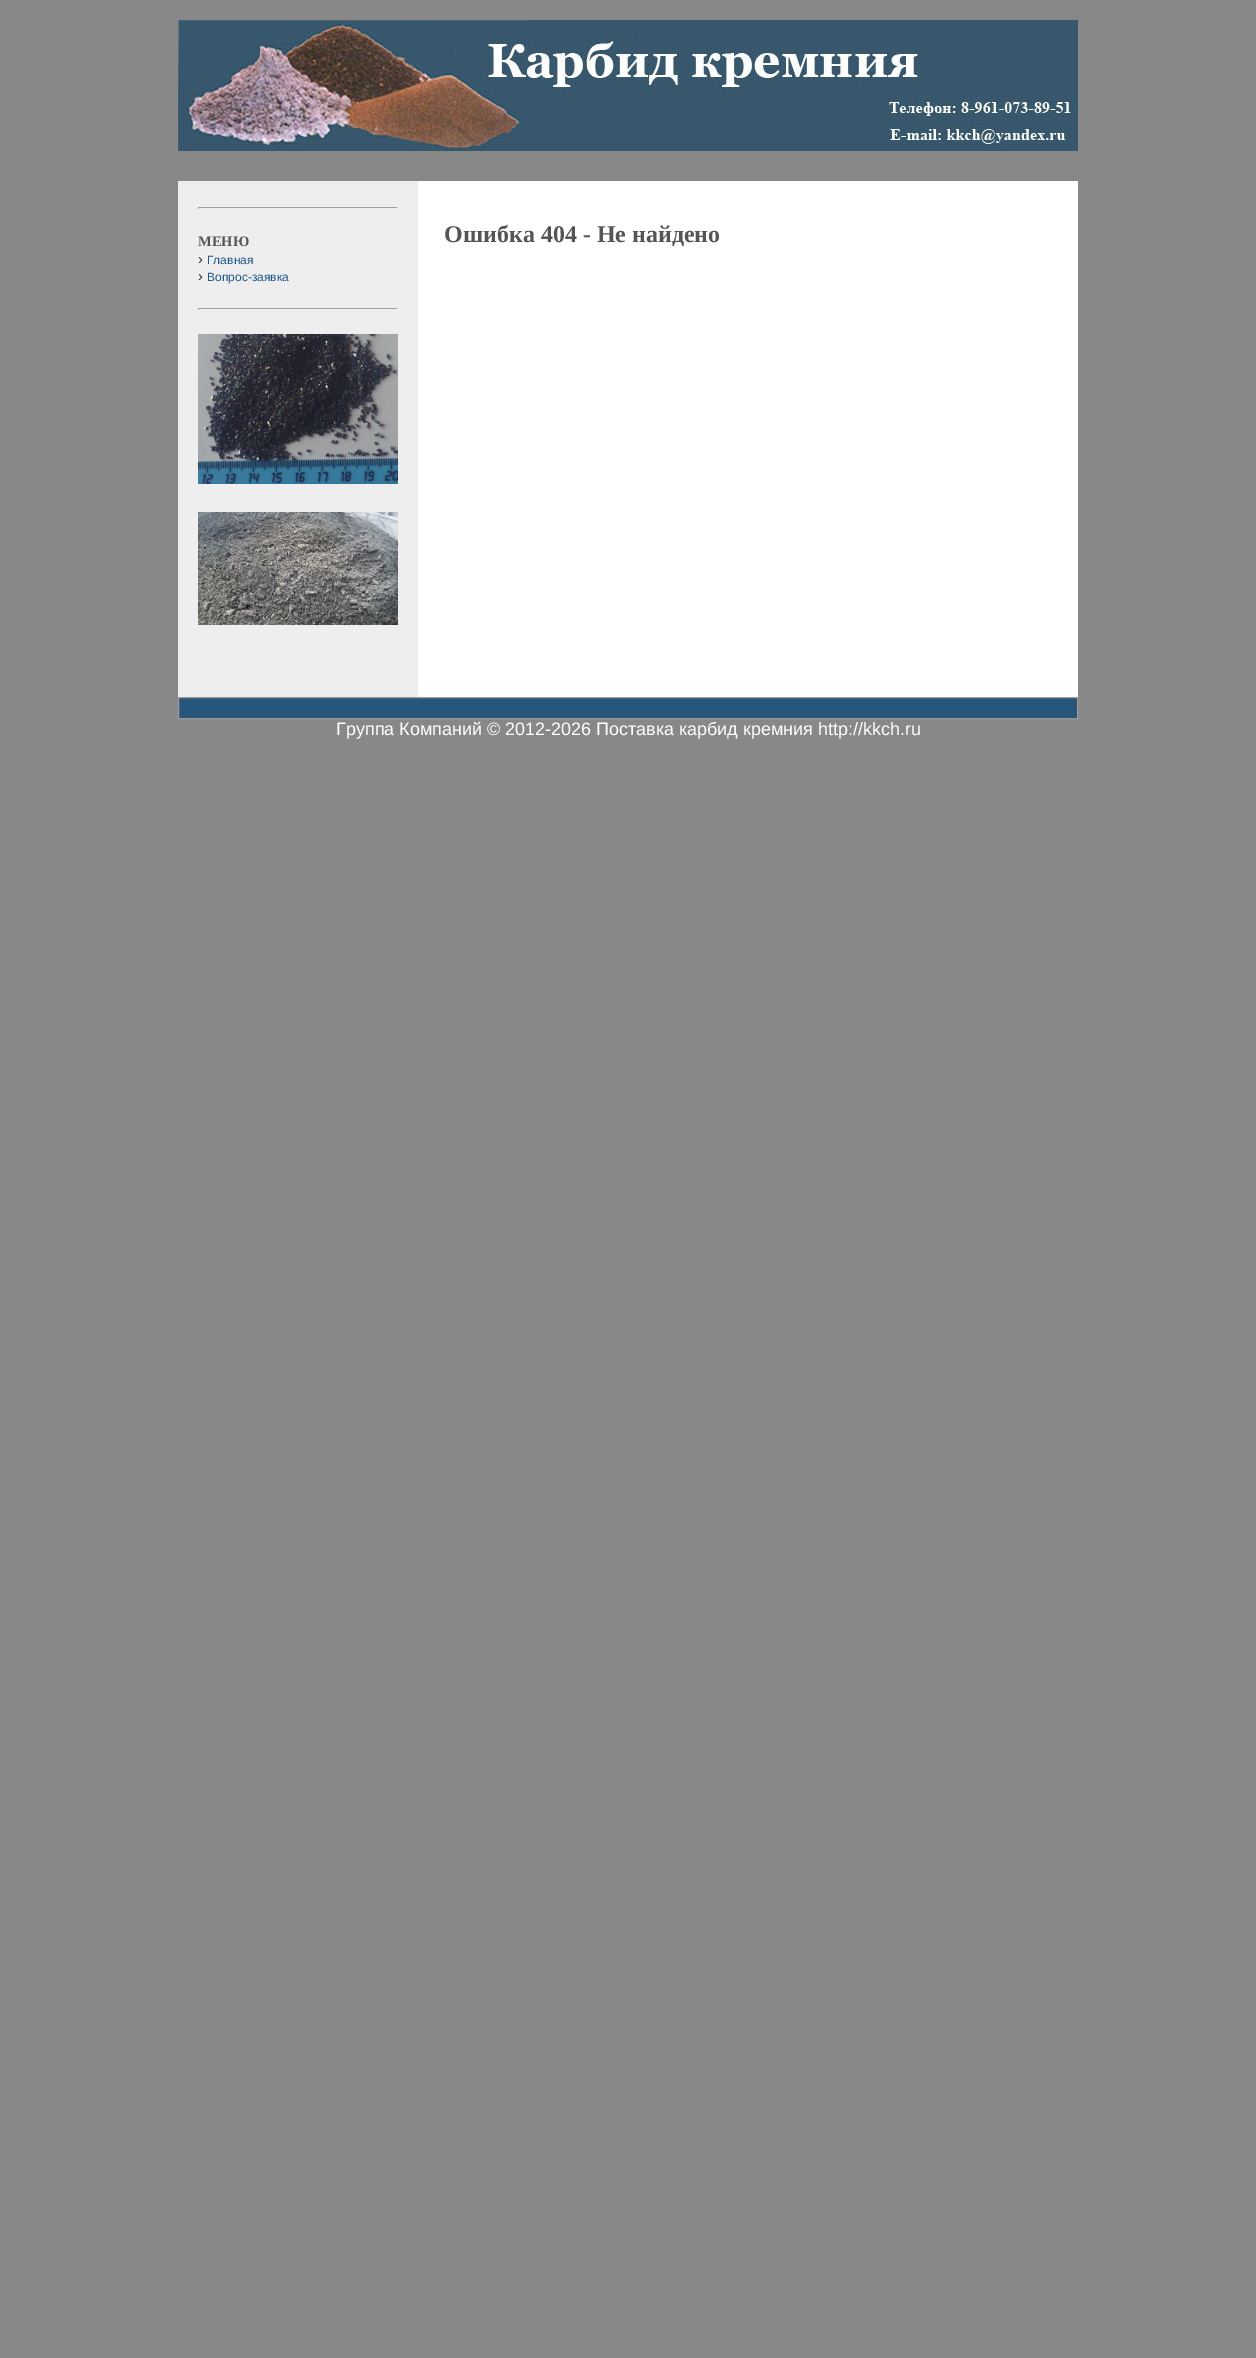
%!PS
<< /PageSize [1256 2358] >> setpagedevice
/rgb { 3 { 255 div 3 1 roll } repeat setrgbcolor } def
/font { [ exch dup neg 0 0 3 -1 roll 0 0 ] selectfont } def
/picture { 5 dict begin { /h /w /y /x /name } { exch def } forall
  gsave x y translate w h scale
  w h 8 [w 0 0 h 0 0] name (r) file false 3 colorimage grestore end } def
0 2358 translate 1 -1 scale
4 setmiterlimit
136 136 136 rgb
0 0 1256 2358 rectfill
55 87 108 rgb
1074 20 4 131 rectfill
(img/1.rgb) 178 20 896 131 picture
[
  [418 181 660 516 255 255 255]
  [178 181 240 516 238 238 238]
  [198 207 200 1 159 159 159]
  [397 207 1 2 238 238 238]
  [198 207 1 2 159 159 159]
  [198 308 200 1 159 159 159]
  [397 308 1 2 238 238 238]
  [198 308 1 2 159 159 159]
] { aload pop rgb rectfill } forall
(img/2.rgb) 198 334 200 150 picture
(img/3.rgb) 198 512 200 113 picture
39 86 122 rgb
178.5 697.5 moveto 1077.5 697.5 lineto 1077.5 718.5 lineto 178.5 718.5 lineto closepath gsave fill grestore
153 153 153 rgb
stroke
/LiberationSerif-Bold 14.5 font
85 85 85 rgb
198 246 moveto (МЕНЮ) show
/LiberationSans-Regular 14.5 font
34 34 34 rgb
198 264 moveto (›) show
/LiberationSans-Regular 12 font
34 85 136 rgb
207 264 moveto (Главная) show
/LiberationSans-Regular 14.5 font
34 34 34 rgb
198 281 moveto (›) show
/LiberationSans-Regular 12 font
34 85 136 rgb
207 281 moveto (Вопрос-заявка) show
/LiberationSerif-Bold 24 font
85 85 85 rgb
444 242 moveto (Ошибка 404 - Не найдено) show
/LiberationSans-Regular 18 font
255 255 255 rgb
336 735 moveto (Группа Компаний © 2012-2026 Поставка карбид кремния http://kkch.ru) show
showpage
